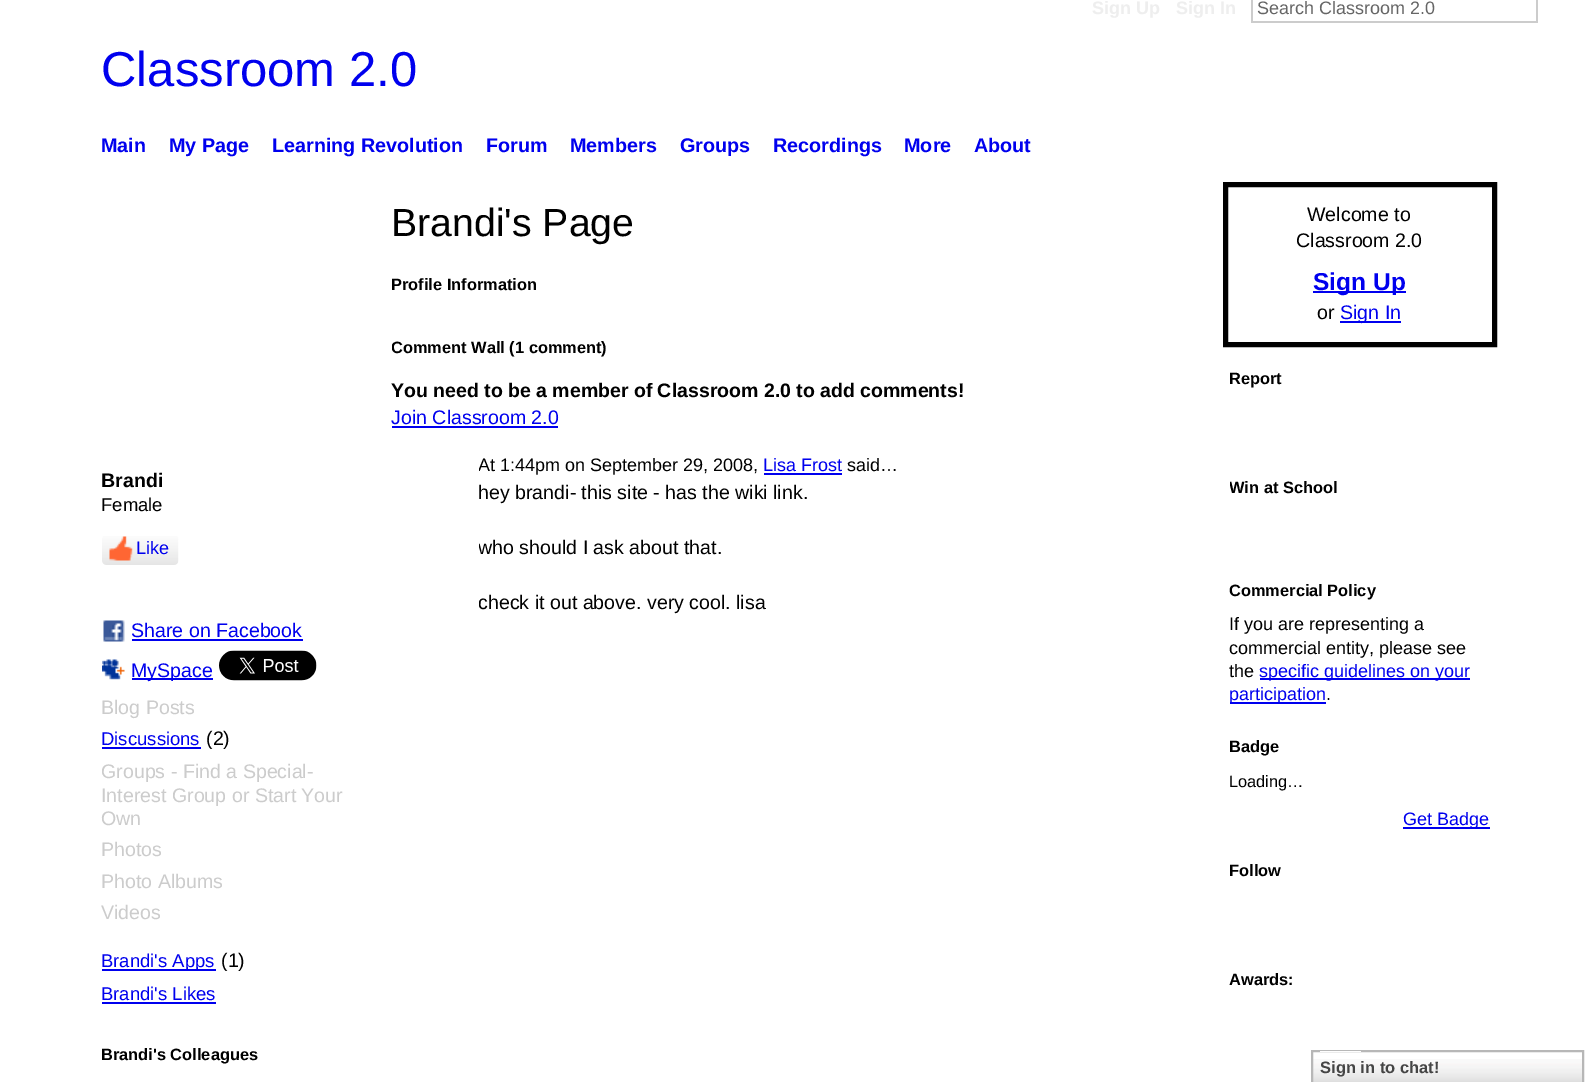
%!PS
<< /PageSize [1589 1082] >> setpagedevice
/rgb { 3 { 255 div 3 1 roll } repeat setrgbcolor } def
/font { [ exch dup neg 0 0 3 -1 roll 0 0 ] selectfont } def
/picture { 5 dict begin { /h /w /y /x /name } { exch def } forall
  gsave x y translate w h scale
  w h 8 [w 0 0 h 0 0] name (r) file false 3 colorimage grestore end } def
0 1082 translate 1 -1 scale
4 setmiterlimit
255 255 255 rgb
0 0 1589 1082 rectfill
[
  [1536 0 2 23 204 204 204]
  [1251 21 287 2 204 204 204]
  [1251 0 2 23 204 204 204]
  [392 426 166 2 0 0 238]
  [764 473 78 2 0 0 238]
] { aload pop rgb rectfill } forall
(img/1.rgb) 102 536 77 29 picture
(img/2.rgb) 109 536 24 25 picture
(img/3.rgb) 103 620 22 22 picture
132 639 171 2 rectfill
(img/4.rgb) 102 659 23 21 picture
132 678 81 2 rectfill
(img/5.rgb) 219 650 98 31 picture
[
  [102 747 99 2 0 0 238]
  [102 969 114 2 0 0 238]
  [102 1002 114 2 0 0 238]
] { aload pop rgb rectfill } forall
0 0 0 rgb
5 setlinewidth
1225.5 184.5 269 160 rectstroke
[
  [1313 291 93 2 0 0 238]
  [1340 321 61 2 0 0 238]
  [1260 678 210 2 0 0 238]
  [1230 702 96 2 0 0 238]
  [1403 827 87 2 0 0 238]
] { aload pop rgb rectfill } forall
(img/6.rgb) 1313 1059 269 23 picture
183 183 183 rgb
2 setlinewidth
1312 1051 271 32 rectstroke
253 253 253 rgb
1320 1051 41 1 rectfill
/LiberationSans-Bold 18 font
238 238 238 rgb
1092 14 moveto (Sign Up) show
1176 14 moveto (Sign In) show
/LiberationSans-Regular 18 font
102 102 102 rgb
1257 14 moveto (Search Classroom 2.0) show
/LiberationSans-Regular 49 font
0 0 238 rgb
101 86 moveto (Classroom 2.0) show
/LiberationSans-Bold 19.75 font
[
  [(Main) 101 152]
  [(My Page) 169 152]
  [(Learning Revolution) 272 152]
  [(Forum) 486 152]
  [(Members) 570 152]
  [(Groups) 680 152]
  [(Recordings) 773 152]
  [(More) 904 152]
  [(About) 974 152]
] { aload pop moveto show } forall
/LiberationSans-Regular 39.25 font
0 0 0 rgb
391 236 moveto (Brandi's Page) show
gsave
392 273 144 21 rectclip
/LiberationSans-Bold 16.4 font
391 290 moveto (Profile Information) show
grestore
gsave
392 336 214 23 rectclip
/LiberationSans-Bold 16.4 font
391 353 moveto (Comment Wall \(1 comment\)) show
grestore
/LiberationSans-Bold 19.5 font
391 397 moveto (You need to be a member of Classroom 2.0 to add comments!) show
/LiberationSans-Regular 19.6 font
0 0 238 rgb
391 424 moveto (Join Classroom 2.0) show
gsave
479 455 669 22 rectclip
/LiberationSans-Regular 18 font
0 0 0 rgb
478 471 moveto (At 1:44pm on September 29, 2008,) show
grestore
/LiberationSans-Regular 18 font
763 471 moveto (Lisa Frost) show
0 0 0 rgb
847 471 moveto (said…) show
/LiberationSans-Regular 19.6 font
478 499 moveto (hey brandi- this site - has the wiki link.) show
gsave
479 480 669 137 rectclip
478 554 moveto (who should I ask about that.) show
478 609 moveto (check it out above. very cool. lisa) show
grestore
/LiberationSans-Bold 19.6 font
101 487 moveto (Brandi) show
/LiberationSans-Regular 18.5 font
101 511 moveto (Female) show
/LiberationSans-Regular 18 font
0 0 238 rgb
136 554 moveto (Like) show
/LiberationSans-Regular 19.6 font
131 637 moveto (Share on Facebook) show
131 677 moveto (MySpace) show
204 204 204 rgb
101 714 moveto (Blog Posts) show
/LiberationSans-Regular 18.5 font
0 0 238 rgb
101 745 moveto (Discussions) show
/LiberationSans-Regular 19.6 font
0 0 0 rgb
206 745 moveto (\(2\)) show
204 204 204 rgb
[
  [(Groups - Find a Special-) 101 778]
  [(Interest Group or Start Your) 101 802]
  [(Own) 101 825]
  [(Photos) 101 856]
  [(Photo Albums) 101 888]
  [(Videos) 101 919]
] { aload pop moveto show } forall
/LiberationSans-Regular 18.5 font
0 0 238 rgb
101 967 moveto (Brandi's Apps) show
/LiberationSans-Regular 19.6 font
0 0 0 rgb
221 967 moveto (\(1\)) show
/LiberationSans-Regular 18.5 font
0 0 238 rgb
101 1000 moveto (Brandi's Likes) show
/LiberationSans-Bold 16.4 font
0 0 0 rgb
101 1060 moveto (Brandi's Colleagues) show
/LiberationSans-Regular 19.6 font
1307 221 moveto (Welcome to) show
1296 247 moveto (Classroom 2.0) show
/LiberationSans-Bold 24.5 font
0 0 238 rgb
1313 290 moveto (Sign Up) show
/LiberationSans-Regular 19.6 font
0 0 0 rgb
1317 319 moveto (or) show
0 0 238 rgb
1340 319 moveto (Sign In) show
/LiberationSans-Bold 16.4 font
0 0 0 rgb
1229 384 moveto (Report) show
gsave
1230 477 108 21 rectclip
1229 493 moveto (Win at School) show
grestore
1229 596 moveto (Commercial Policy) show
/LiberationSans-Regular 18 font
[
  [(If you are representing a) 1229 630]
  [(commercial entity, please see) 1229 654]
  [(the) 1229 677]
] { aload pop moveto show } forall
0 0 238 rgb
1259 677 moveto (specific guidelines on your) show
1229 700 moveto (participation) show
0 0 0 rgb
1326 700 moveto (.) show
/LiberationSans-Bold 16.4 font
1229 752 moveto (Badge) show
/LiberationSans-Regular 16.4 font
1229 787 moveto (Loading…) show
/LiberationSans-Regular 18 font
0 0 238 rgb
1403 825 moveto (Get Badge) show
/LiberationSans-Bold 16.4 font
0 0 0 rgb
1229 876 moveto (Follow) show
1229 985 moveto (Awards:) show
/LiberationSans-Bold 16.5 font
69 69 69 rgb
1320 1073 moveto (Sign in to chat!) show
showpage
